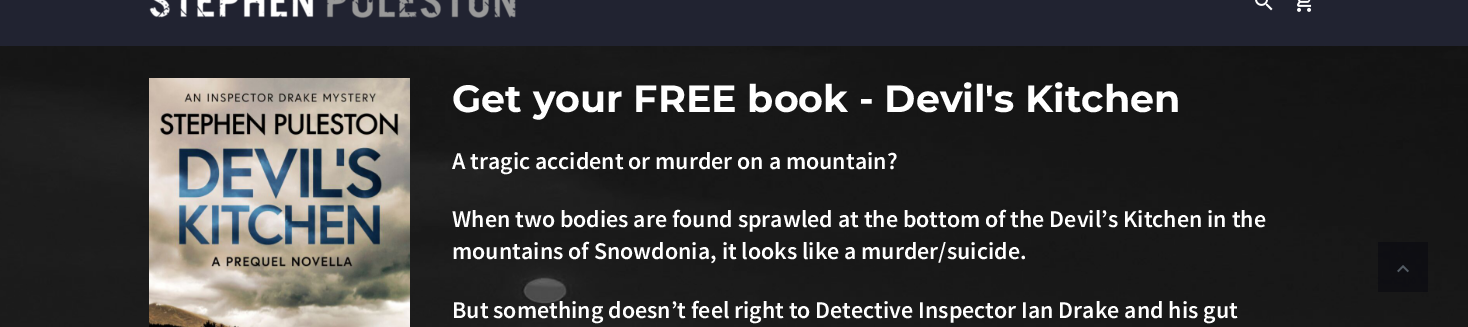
%!PS
<< /PageSize [1468 327] /PageUsesTransparency true >> setpagedevice
/rgb { 3 { 255 div 3 1 roll } repeat setrgbcolor } def
/font { [ exch dup neg 0 0 3 -1 roll 0 0 ] selectfont } def
/alpha { dup .setfillconstantalpha .setstrokeconstantalpha } def
/picture { 5 dict begin { /h /w /y /x /name } { exch def } forall
  gsave x y translate w h scale
  w h 8 [w 0 0 h 0 0] name (r) file false 3 colorimage grestore end } def
0 .pushpdf14devicefilter
0 327 translate 1 -1 scale
4 setmiterlimit
33 35 49 rgb
0 0 1468 327 rectfill
(img/1.rgb) 149 0 367 18 picture
(img/2.rgb) 1255 0 18 11 picture
(img/3.rgb) 1297 0 15 12 picture
0 0 0 rgb
0 46 1468 281 rectfill
(img/4.rgb) 0 46 1468 281 picture
(img/5.rgb) 149 78 261 249 picture
0.5 alpha
6 6 15 rgb
1378 242 50 50 rectfill
1 alpha
(img/6.rgb) 1397 265 12 8 picture
/Montserrat-Bold 38 font
255 255 255 rgb
452 112 moveto (Get your FREE book - Devil's Kitchen) show
/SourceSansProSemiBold-SemiBold 24 font
[
  [(A tragic accident or murder on a mountain?) 452 169]
  [(When two bodies are found sprawled at the bottom of the Devil’s Kitchen in the) 452 227]
  [(mountains of Snowdonia, it looks like a murder/suicide.) 452 259]
  [(But something doesn’t feel right to Detective Inspector Ian Drake and his gut) 452 318]
] { aload pop moveto show } forall
.poppdf14devicefilter showpage
